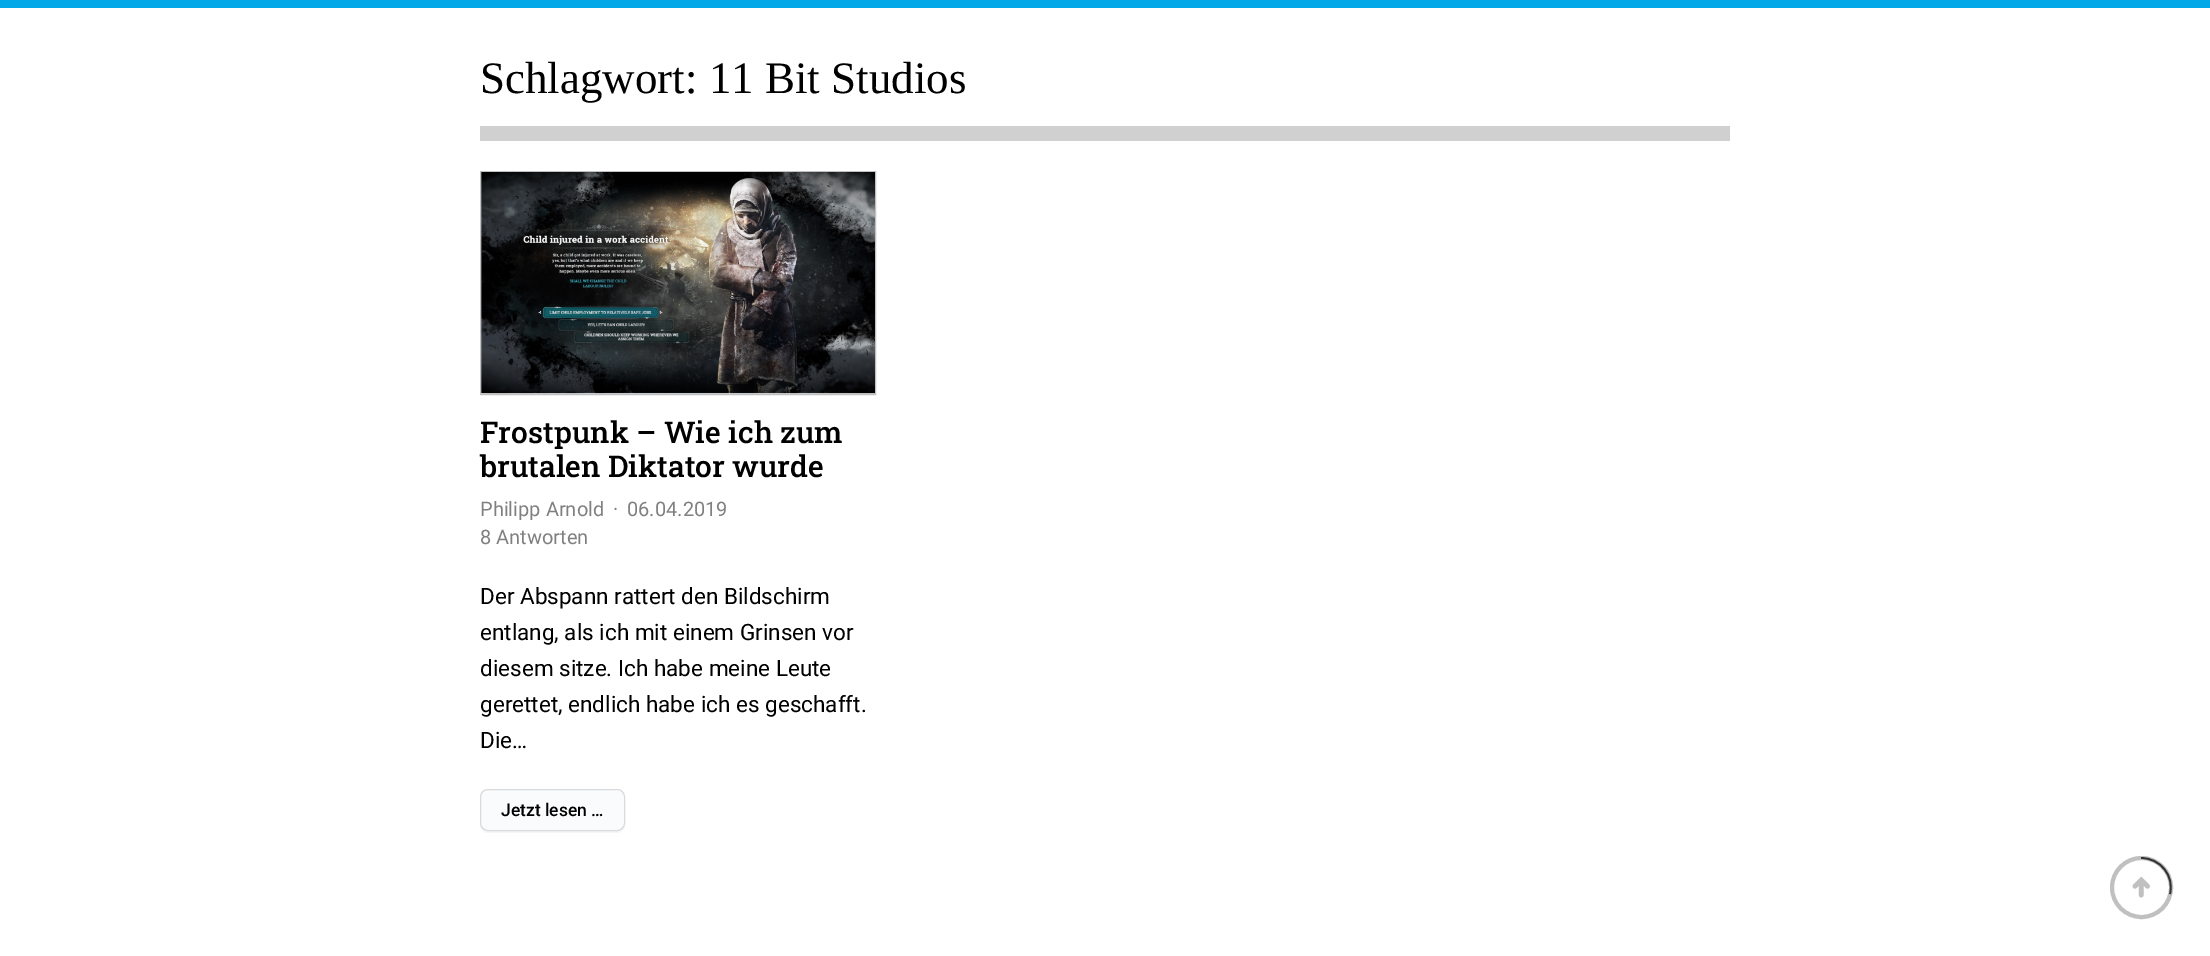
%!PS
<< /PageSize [2210 956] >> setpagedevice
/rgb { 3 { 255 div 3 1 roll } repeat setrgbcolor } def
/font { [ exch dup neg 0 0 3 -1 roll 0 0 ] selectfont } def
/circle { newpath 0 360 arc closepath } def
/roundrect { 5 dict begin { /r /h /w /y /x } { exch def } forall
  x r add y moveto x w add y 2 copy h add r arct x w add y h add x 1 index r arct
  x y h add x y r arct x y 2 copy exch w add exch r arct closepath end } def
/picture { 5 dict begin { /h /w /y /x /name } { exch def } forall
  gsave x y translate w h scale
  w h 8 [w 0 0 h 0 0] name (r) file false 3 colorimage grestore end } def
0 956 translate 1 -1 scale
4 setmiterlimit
255 255 255 rgb
0 0 2210 956 rectfill
2 168 232 rgb
0 0 2210 8 rectfill
208 208 208 rgb
480 126 1250 15 rectfill
192 192 192 rgb
480.5 171.5 395 223 rectstroke
(img/1.rgb) 481 172 394 222 picture
246 246 246 rgb
480 824 moveto 480 825 lineto 480 829 484 833 488 833 curveto 617 833 lineto 621 833 625 829 625 825 curveto 625 824 lineto 625 828 622 831 618 831 curveto 488 831 lineto 483 831 480 828 480 824 curveto closepath fill
250 251 252 rgb
480.5 789.5 144 41 7.5 roundrect gsave fill grestore
217 218 220 rgb
stroke
192 192 192 rgb
4 setlinewidth
2141.5 887.5 29.5 circle stroke
51 51 51 rgb
1.8 setlinewidth
2141 858 moveto 2160.5 858 2174.5 876 2170 894 curveto stroke
(img/2.rgb) 2132 876 18 22 picture
/LiberationSerif-Regular 45 font
0 0 0 rgb
480 93 moveto (Schlagwort: 11 Bit Studios) show
/RobotoSlab-Medium 30 font
480 443 moveto (Frostpunk – Wie ich zum) show
480 477 moveto (brutalen Diktator wurde) show
/Roboto-Regular 20 font
128 128 128 rgb
[
  [(Philipp Arnold) 480 516]
  [(·) 613 516]
  [(06.04.2019) 627 516]
  [(8 Antworten) 480 544]
] { aload pop moveto show } forall
/Roboto-Regular 22.5 font
0 0 0 rgb
[
  [(Der Abspann rattert den Bildschirm) 480 604]
  [(entlang, als ich mit einem Grinsen vor) 480 640]
  [(diesem sitze. Ich habe meine Leute) 480 676]
  [(gerettet, endlich habe ich es geschafft.) 480 712]
  [(Die…) 480 748]
] { aload pop moveto show } forall
/Roboto-Medium 17.5 font
501 816 moveto (Jetzt lesen …) show
showpage
